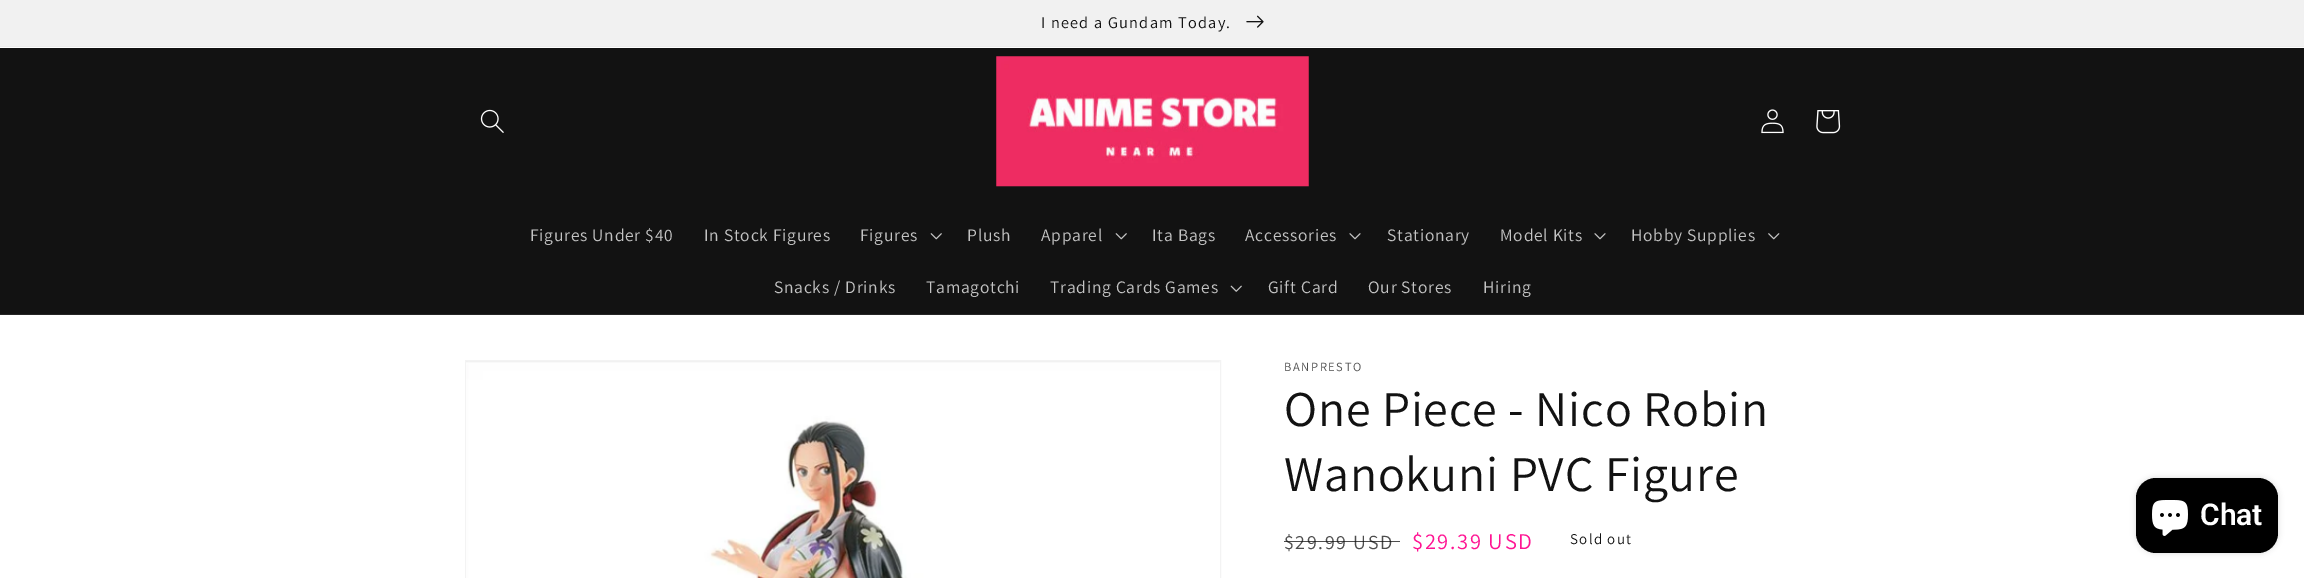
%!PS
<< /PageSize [2304 578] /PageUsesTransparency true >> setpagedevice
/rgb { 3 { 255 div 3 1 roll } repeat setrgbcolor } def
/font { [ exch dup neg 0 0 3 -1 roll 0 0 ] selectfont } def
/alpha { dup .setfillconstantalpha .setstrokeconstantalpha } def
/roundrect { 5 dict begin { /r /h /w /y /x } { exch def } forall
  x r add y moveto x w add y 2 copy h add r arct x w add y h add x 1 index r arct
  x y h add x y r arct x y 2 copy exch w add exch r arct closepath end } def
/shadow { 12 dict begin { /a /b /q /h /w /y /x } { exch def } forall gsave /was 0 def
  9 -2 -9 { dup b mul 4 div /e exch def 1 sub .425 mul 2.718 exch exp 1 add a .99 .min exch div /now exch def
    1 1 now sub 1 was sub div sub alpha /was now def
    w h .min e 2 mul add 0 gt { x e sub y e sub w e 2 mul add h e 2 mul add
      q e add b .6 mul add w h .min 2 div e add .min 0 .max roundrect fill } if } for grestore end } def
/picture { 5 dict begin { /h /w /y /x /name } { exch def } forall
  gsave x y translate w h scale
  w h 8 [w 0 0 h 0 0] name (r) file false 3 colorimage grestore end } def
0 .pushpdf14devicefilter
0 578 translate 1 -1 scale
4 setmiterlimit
255 255 255 rgb
0 0 2304 578 rectfill
236 236 236 rgb
0 46 2304 1 rectfill
241 241 241 rgb
0 0 2304 46 rectfill
(img/1.rgb) 1246 15 18 13 picture
18 18 18 rgb
0 48 2304 266 rectfill
37 37 37 rgb
0 314 2304 1 rectfill
(img/2.rgb) 480 109 24 24 picture
(img/3.rgb) 996 56 313 131 picture
(img/4.rgb) 1761 109 23 25 picture
(img/5.rgb) 1816 110 25 24 picture
(img/6.rgb) 930 233 12 7 picture
(img/6.rgb) 1115 233 12 7 picture
(img/7.rgb) 1349 233 12 7 picture
(img/7.rgb) 1594 233 12 7 picture
(img/8.rgb) 1768 233 12 7 picture
(img/9.rgb) 1230 285 12 7 picture
243 243 243 rgb
465.5 360.5 755 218 rectstroke
(img/10.rgb) 466 361 754 217 picture
0 0 0 rgb
2136 478 142 75 20 3 0.15 shadow
2136 478 142 75 20 roundrect fill
(img/11.rgb) 2152 500 36 36 picture
/Assistant-Regular 16.25 font
18 18 18 rgb
1041 28 moveto 1.25 0 (I need a Gundam Today.) ashow
/Assistant-Regular 17.5 font
196 196 196 rgb
530 241 moveto 0.75 0 (Figures Under $40) ashow
704 241 moveto 0.75 0 (In Stock Figures) ashow
860 241 moveto 0.75 0 (Figures) ashow
967 241 moveto 0.75 0 (Plush) ashow
1041 241 moveto 0.75 0 (Apparel) ashow
1152 241 moveto 0.75 0 (Ita Bags) ashow
1245 241 moveto 0.75 0 (Accessories) ashow
1387 241 moveto 0.75 0 (Stationary) ashow
1500 241 moveto 0.75 0 (Model Kits) ashow
1631 241 moveto 0.75 0 (Hobby Supplies) ashow
774 293 moveto 0.75 0 (Snacks / Drinks) ashow
926 293 moveto 0.75 0 (Tamagotchi) ashow
1050 293 moveto 0.75 0 (Trading Cards Games) ashow
1268 293 moveto 0.75 0 (Gift Card) ashow
1368 293 moveto 0.75 0 (Our Stores) ashow
1483 293 moveto 0.75 0 (Hiring) ashow
/Assistant-Regular 12.5 font
77 77 77 rgb
1284 371 moveto 1.6 0 (BANPRESTO) ashow
/Assistant-Regular 50 font
18 18 18 rgb
1284 426 moveto 0.75 0 (One Piece - Nico Robin) ashow
1284 491 moveto 0.75 0 (Wanokuni PVC Figure) ashow
/Assistant-Regular 20 font
77 77 77 rgb
1284 549 moveto 1.6 0 ($29.99 USD) ashow
0.75 alpha
18 18 18 rgb
1284 541 116 1 rectfill
/Assistant-Regular 22.5 font
1 alpha
255 20 147 rgb
1412 549 moveto 1.6 0 ($29.39 USD) ashow
/Assistant-Regular 15 font
18 18 18 rgb
1570 544 moveto 1.25 0 (Sold out) ashow
/Roboto-SemiBold 30 font
255 255 255 rgb
2200 525 moveto (Chat) show
.poppdf14devicefilter showpage
